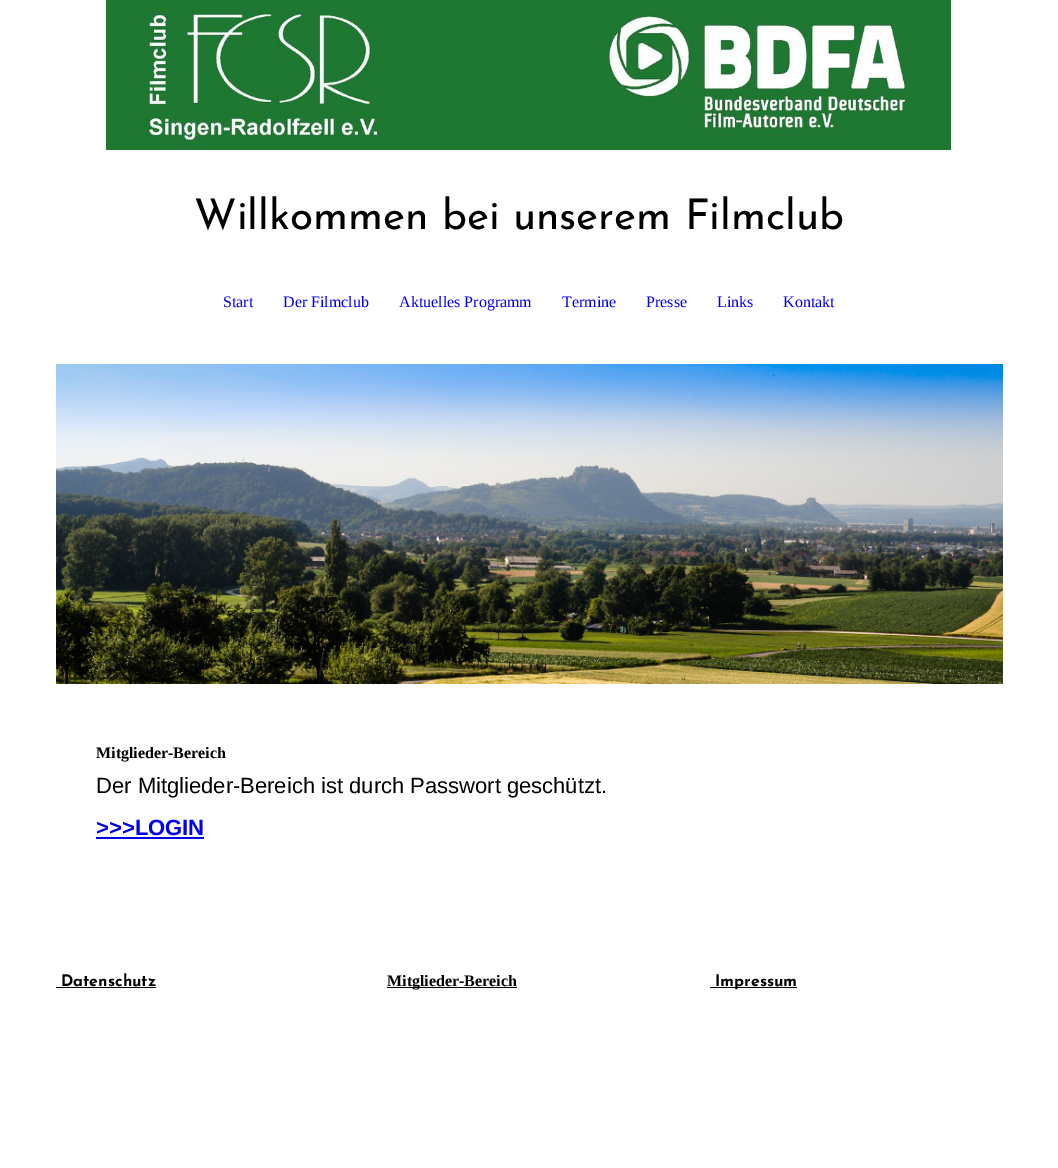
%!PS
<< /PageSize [1058 1168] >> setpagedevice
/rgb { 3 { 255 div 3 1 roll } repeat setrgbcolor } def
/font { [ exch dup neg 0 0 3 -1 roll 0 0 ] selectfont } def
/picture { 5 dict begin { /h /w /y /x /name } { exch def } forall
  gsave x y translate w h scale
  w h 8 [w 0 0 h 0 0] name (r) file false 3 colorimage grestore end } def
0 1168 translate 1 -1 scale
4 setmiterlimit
255 255 255 rgb
0 0 1058 1168 rectfill
(img/1.rgb) 106 0 845 150 picture
(img/2.rgb) 56 364 947 320 picture
[
  [96 837 108 2 0 0 238]
  [56 987 100 1 0 0 0]
  [387 987 130 1 4 0 0]
  [710 987 87 1 0 0 0]
] { aload pop rgb rectfill } forall
/JosefinSans-Regular 42.3 font
194 229 moveto (Willkommen bei unserem Filmclub) show
/LiberationSerif-Regular 16 font
0 0 238 rgb
[
  [(Start) 223 307]
  [(Der Filmclub) 283 307]
  [(Aktuelles Programm) 399 307]
  [(Termine) 562 307]
  [(Presse) 646 307]
  [(Links) 717 307]
  [(Kontakt) 783 307]
] { aload pop moveto show } forall
/LiberationSerif-Bold 16 font
0 0 0 rgb
96 758 moveto (Mitglieder-Bereich) show
/LiberationSans-Regular 22 font
96 793 moveto (Der Mitglieder-Bereich ist durch Passwort geschützt.) show
/LiberationSans-Bold 22 font
0 0 238 rgb
96 835 moveto (>>>LOGIN) show
/JosefinSans-Bold 16 font
0 0 0 rgb
61 986 moveto (Datenschutz) show
/LiberationSerif-Bold 16 font
387 986 moveto (Mitglieder-Bereich) show
/JosefinSans-Bold 16 font
715 986 moveto (Impressum) show
showpage
